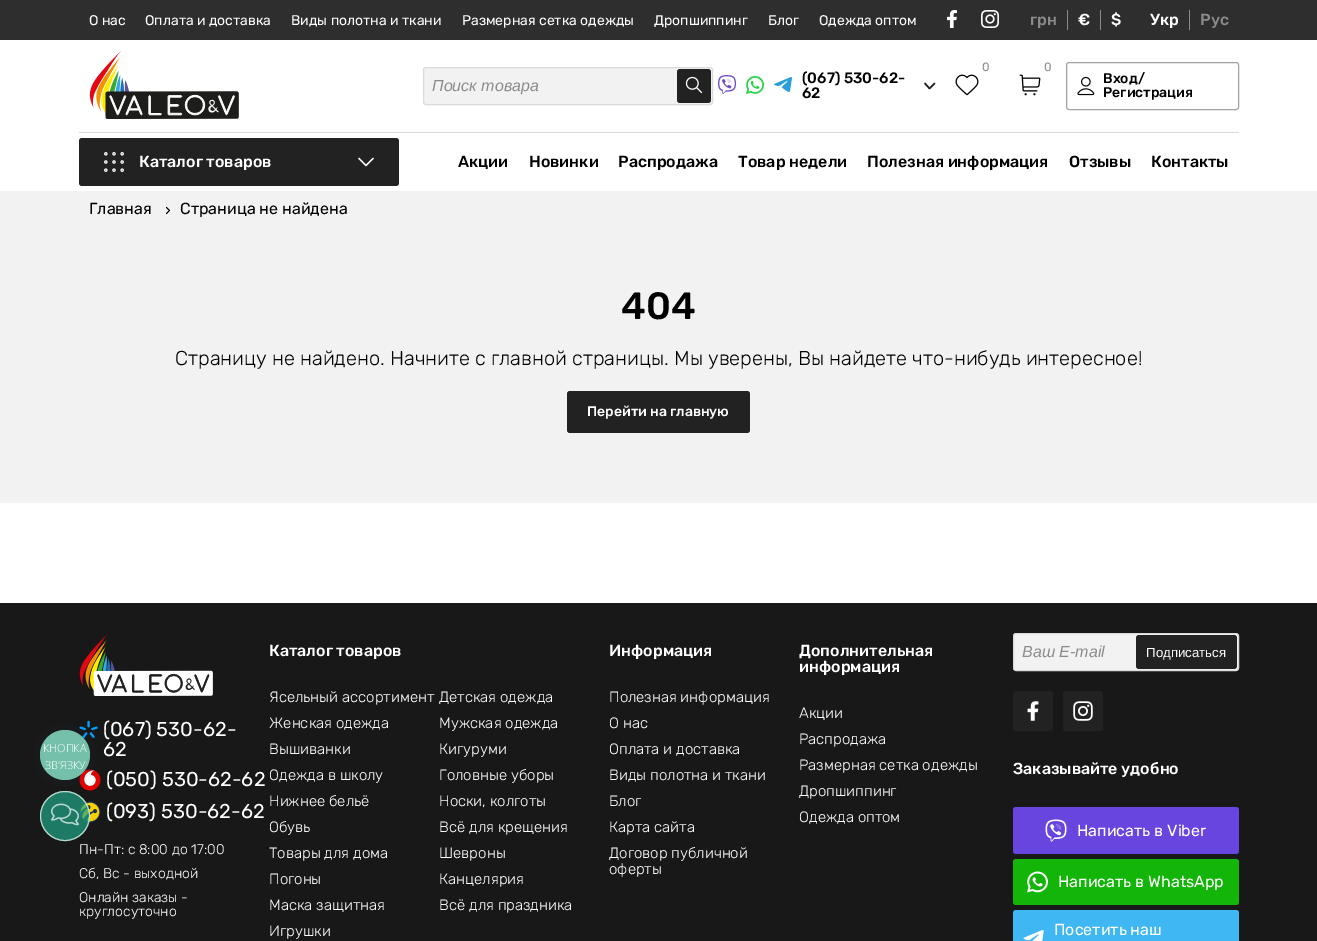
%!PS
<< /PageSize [1317 941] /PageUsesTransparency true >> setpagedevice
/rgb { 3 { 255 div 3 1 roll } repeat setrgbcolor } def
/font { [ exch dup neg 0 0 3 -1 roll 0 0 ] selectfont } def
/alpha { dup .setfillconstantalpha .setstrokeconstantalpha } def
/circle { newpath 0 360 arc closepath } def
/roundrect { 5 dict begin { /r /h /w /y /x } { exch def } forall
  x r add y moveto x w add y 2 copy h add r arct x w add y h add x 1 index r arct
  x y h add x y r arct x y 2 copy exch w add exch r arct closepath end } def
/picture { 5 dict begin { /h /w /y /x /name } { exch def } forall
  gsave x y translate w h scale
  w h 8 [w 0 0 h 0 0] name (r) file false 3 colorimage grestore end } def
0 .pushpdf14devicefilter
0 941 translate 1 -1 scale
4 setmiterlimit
255 255 255 rgb
0 0 1317 941 rectfill
24 24 24 rgb
0 603 1317 338 rectfill
(img/13.rgb) 79 720 19 19 picture
(img/14.rgb) 79 769 22 22 picture
0.06 alpha
42 64 93 rgb
65 755 31 circle fill
1 alpha
116 192 171 rgb
65 755 25 circle fill
46 46 46 rgb
0 0 1317 40 rectfill
(img/1.rgb) 947 10 10 18 picture
(img/2.rgb) 981 10 18 18 picture
[
  [1067 10 1 20 139 139 139]
  [1100 10 1 20 139 139 139]
  [1189 10 1 20 139 139 139]
  [79 132 1160 1 218 218 218]
] { aload pop rgb rectfill } forall
(img/3.rgb) 89 51 150 68 picture
242 242 242 rgb
423.5 67.5 289 37 2.5 roundrect gsave fill grestore
218 218 218 rgb
stroke
34 34 34 rgb
677 69 34 34 3 roundrect fill
(img/4.rgb) 685 76 18 18 picture
(img/5.rgb) 718 75 18 19 picture
(img/6.rgb) 746 76 18 18 picture
(img/7.rgb) 774 77 18 15 picture
1.6 setlinewidth
1 setlinecap
1 setlinejoin
925 83.5 moveto 929.5 88.5 lineto 934.5 83.5 lineto stroke
(img/8.rgb) 955 74 24 22 picture
(img/9.rgb) 1019 74 22 22 picture
162 162 162 rgb
1 setlinewidth
0 setlinecap
0 setlinejoin
1066.5 62.5 172 47 2.5 roundrect stroke
(img/10.rgb) 1077 76 18 20 picture
34 34 34 rgb
79 138 320 48 3 roundrect fill
(img/11.rgb) 104 152 20 20 picture
255 255 255 rgb
1.3 setlinewidth
1 setlinecap
1 setlinejoin
359 158.5 moveto 366 165.5 lineto 373 158.5 lineto stroke
242 242 242 rgb
0 191 1317 312 rectfill
0 0 0 rgb
1 setlinewidth
166.5 213.5 moveto 169.5 210.5 lineto 166.5 207.5 lineto stroke
34 34 34 rgb
567 391 183 42 3 roundrect fill
(img/12.rgb) 79 634 134 62 picture
(img/15.rgb) 79 801 22 22 picture
242 242 242 rgb
1013.5 633.5 225 37 2.5 roundrect gsave fill grestore
218 218 218 rgb
0 setlinecap
0 setlinejoin
stroke
34 34 34 rgb
1136 635 101 34 3 roundrect fill
1013 691 40 40 3 roundrect fill
(img/16.rgb) 1027 701 12 20 picture
1063 691 40 40 3 roundrect fill
(img/17.rgb) 1073 701 20 20 picture
105 69 224 rgb
1013 807 226 47 3 roundrect fill
(img/18.rgb) 1045 819 22 23 picture
19 182 8 rgb
1013 859 226 46 3 roundrect fill
(img/19.rgb) 1027 871 21 22 picture
62 183 243 rgb
1013 910 226 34 3 roundrect fill
(img/20.rgb) 1023 930 21 11 picture
0.7 alpha
31 164 132 rgb
65 816 25 circle fill
255 255 255 rgb
65 816 24.5 circle stroke
1 alpha
(img/21.rgb) 51 803 28 23 picture
/OpenSans-Light 11 font
43 752 moveto (КНОПКА) show
45 769 moveto (ЗВ'ЯЗКУ) show
/Rubik-Regular 14 font
[
  [(О нас) 89 25]
  [(Оплата и доставка) 145 25]
  [(Виды полотна и ткани) 291 25]
  [(Размерная сетка одежды) 462 25]
  [(Дропшиппинг) 654 25]
  [(Блог) 768 25]
  [(Одежда оптом) 819 25]
] { aload pop moveto show } forall
/Rubik-Medium 16 font
139 139 139 rgb
1030 25 moveto (грн) show
255 255 255 rgb
[
  [(€) 1078 25]
  [($) 1111 25]
  [(Укр) 1150 25]
] { aload pop moveto show } forall
139 139 139 rgb
1200 25 moveto (Рус) show
/LiberationSans-Italic 16 font
432 91 moveto (Поиск товара) show
/Rubik-Medium 15 font
0 0 0 rgb
802 83 moveto (\(067\) 530-62-) show
802 98 moveto (62) show
/Rubik-Regular 12 font
139 139 139 rgb
982 71 moveto (0) show
1044 71 moveto (0) show
/Rubik-Medium 14 font
0 0 0 rgb
1103 83 moveto (Вход/) show
1103 97 moveto (Регистрация) show
/Rubik-Medium 16 font
255 255 255 rgb
139 167 moveto (Каталог товаров) show
0 0 0 rgb
[
  [(Акции) 458 167]
  [(Новинки) 529 167]
  [(Распродажа) 618 167]
  [(Товар недели) 738 167]
  [(Полезная информация) 867 167]
  [(Отзывы) 1069 167]
  [(Контакты) 1151 167]
] { aload pop moveto show } forall
/Rubik-Regular 16 font
89 214 moveto (Главная) show
180 214 moveto (Страница не найдена) show
/Rubik-Medium 38 font
621 319 moveto (404) show
/Rubik-Light 20 font
175 365 moveto (Страницу не найдено. Начните с главной страницы. Мы уверены, Вы найдете что-нибудь интересное!) show
/Rubik-Medium 14 font
255 255 255 rgb
587 416 moveto (Перейти на главную) show
/Rubik-Regular 20 font
[
  [(\(067\) 530-62-) 103 736]
  [(62) 103 756]
  [(\(050\) 530-62-62) 106 786]
  [(\(093\) 530-62-62) 106 818]
] { aload pop moveto show } forall
/Rubik-Light 14 font
[
  [(Пн-Пт: с 8:00 до 17:00) 79 854]
  [(Сб, Вс - выходной) 79 878]
  [(Онлайн заказы -) 79 902]
  [(круглосуточно) 79 916]
] { aload pop moveto show } forall
/Rubik-Medium 16 font
269 656 moveto (Каталог товаров) show
/Rubik-Light 15 font
[
  [(Ясельный ассортимент) 269 702]
  [(Детская одежда) 439 702]
  [(Женская одежда) 269 728]
  [(Мужская одежда) 439 728]
  [(Вышиванки) 269 754]
  [(Кигуруми) 439 754]
  [(Одежда в школу) 269 780]
  [(Головные уборы) 439 780]
  [(Нижнее бельё) 269 806]
  [(Носки, колготы) 439 806]
  [(Обувь) 269 832]
  [(Всё для крещения) 439 832]
  [(Товары для дома) 269 858]
  [(Шевроны) 439 858]
  [(Погоны) 269 884]
  [(Канцелярия) 439 884]
  [(Маска защитная) 269 910]
  [(Всё для праздника) 439 910]
  [(Игрушки) 269 936]
] { aload pop moveto show } forall
/Rubik-Medium 16 font
609 656 moveto (Информация) show
/Rubik-Light 15 font
[
  [(Полезная информация) 609 702]
  [(О нас) 609 728]
  [(Оплата и доставка) 609 754]
  [(Виды полотна и ткани) 609 780]
  [(Блог) 609 806]
  [(Карта сайта) 609 832]
  [(Договор публичной) 609 858]
  [(оферты) 609 874]
] { aload pop moveto show } forall
/Rubik-Medium 16 font
799 656 moveto (Дополнительная) show
799 672 moveto (информация) show
/Rubik-Light 15 font
[
  [(Акции) 799 718]
  [(Распродажа) 799 744]
  [(Размерная сетка одежды) 799 770]
  [(Дропшиппинг) 799 796]
  [(Одежда оптом) 799 822]
] { aload pop moveto show } forall
/LiberationSans-Italic 16 font
139 139 139 rgb
1022 657 moveto (Ваш E-mail) show
/LiberationSans-Regular 13.25 font
255 255 255 rgb
1146 657 moveto (Подписаться) show
/Rubik-Medium 16 font
1013 774 moveto (Заказывайте удобно) show
/Rubik-Regular 16 font
[
  [(Написать в Viber) 1077 836]
  [(Написать в WhatsApp) 1058 887]
  [(Посетить наш) 1054 935]
] { aload pop moveto show } forall
.poppdf14devicefilter showpage
